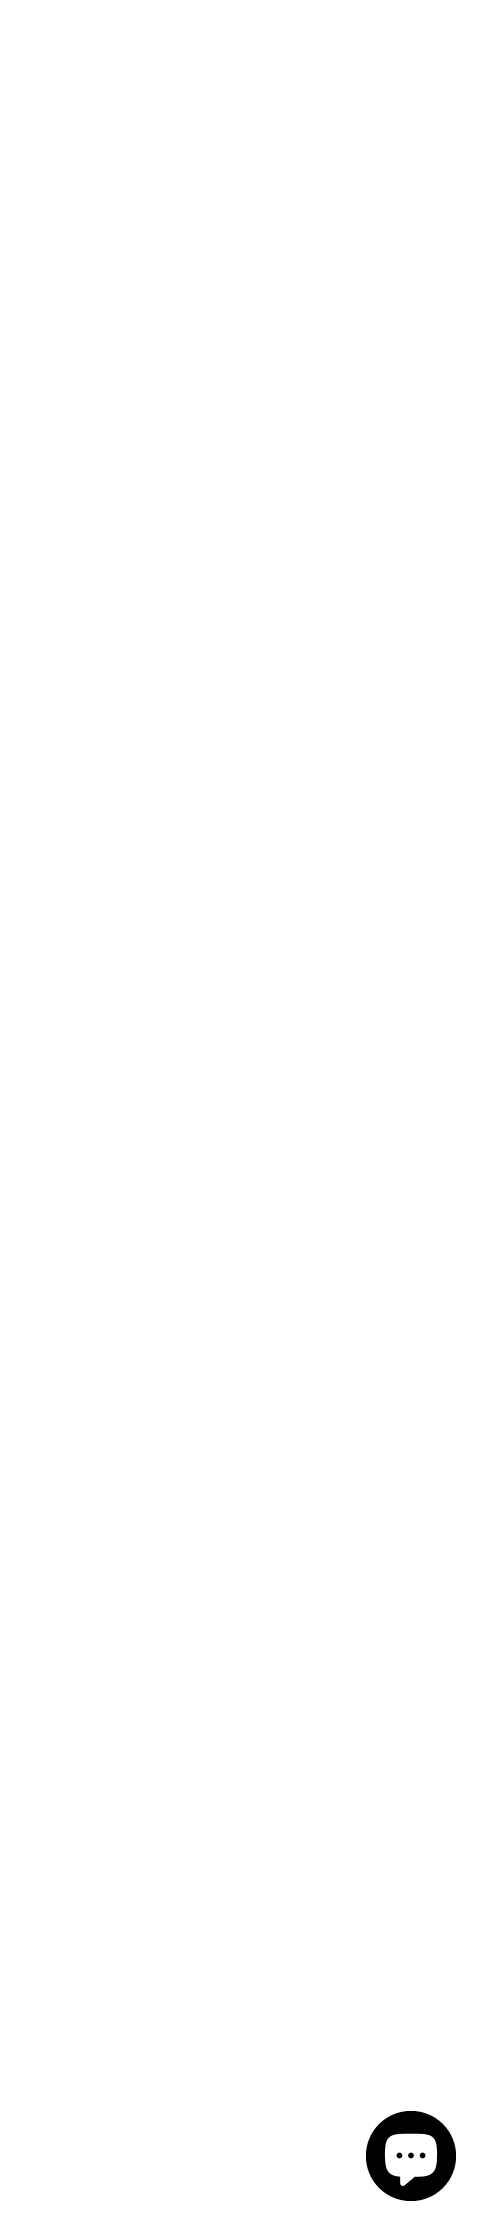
%!PS
<< /PageSize [488 2231] >> setpagedevice
/rgb { 3 { 255 div 3 1 roll } repeat setrgbcolor } def
/circle { newpath 0 360 arc closepath } def
/picture { 5 dict begin { /h /w /y /x /name } { exch def } forall
  gsave x y translate w h scale
  w h 8 [w 0 0 h 0 0] name (r) file false 3 colorimage grestore end } def
0 2231 translate 1 -1 scale
4 setmiterlimit
255 255 255 rgb
0 0 488 2231 rectfill
0 0 0 rgb
411 2156 45 circle fill
(img/1.rgb) 384 2133 54 53 picture
showpage
